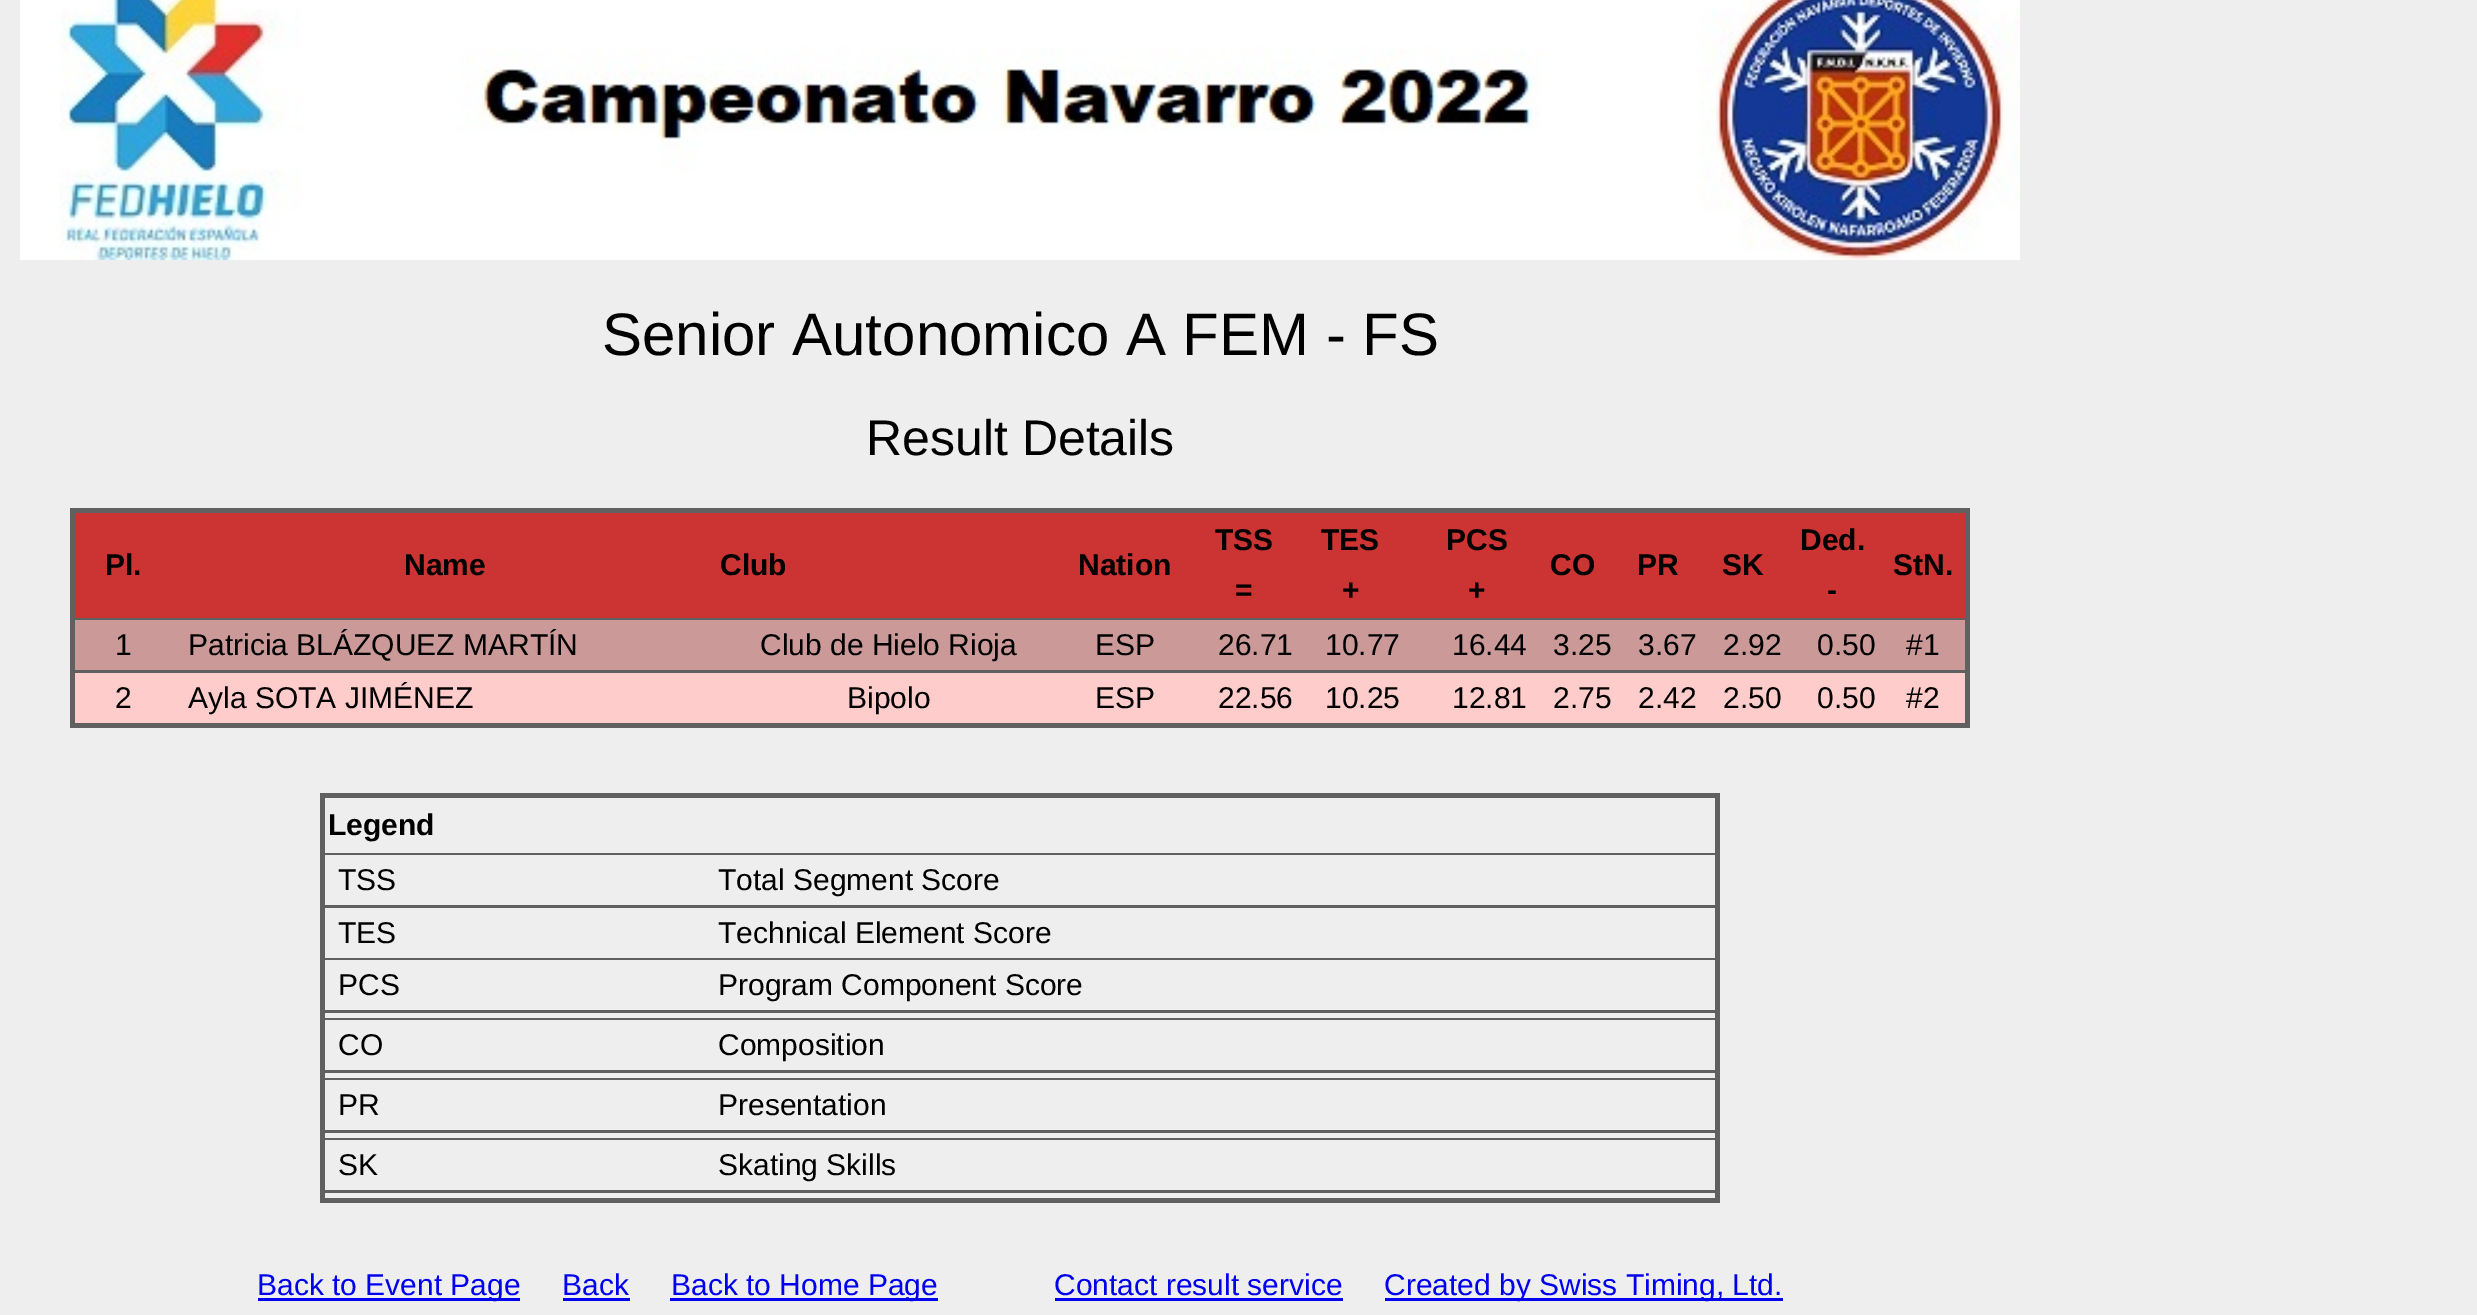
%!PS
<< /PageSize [2477 1315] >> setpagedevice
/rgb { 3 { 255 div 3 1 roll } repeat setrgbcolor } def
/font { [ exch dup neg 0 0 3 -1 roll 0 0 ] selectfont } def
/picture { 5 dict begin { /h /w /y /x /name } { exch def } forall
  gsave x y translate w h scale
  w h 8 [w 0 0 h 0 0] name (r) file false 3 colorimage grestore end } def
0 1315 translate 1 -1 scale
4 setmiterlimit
238 238 238 rgb
0 0 2477 1315 rectfill
(img/1.rgb) 20 0 2000 260 picture
[
  [70 508 1900 220 96 96 96]
  [75 513 1890 105 204 51 51]
  [75 620 1890 50 204 153 153]
  [75 673 1890 50 255 204 204]
  [320 793 1400 410 96 96 96]
  [325 798 1390 55 238 238 238]
  [325 855 1390 50 238 238 238]
  [325 908 1390 50 238 238 238]
  [325 960 1390 50 238 238 238]
  [325 1013 1390 5 238 238 238]
  [325 1020 1390 50 238 238 238]
  [325 1073 1390 5 238 238 238]
  [325 1080 1390 50 238 238 238]
  [325 1133 1390 5 238 238 238]
  [325 1140 1390 50 238 238 238]
  [325 1193 1390 5 238 238 238]
  [258 1298 262 3 0 0 238]
  [563 1298 67 3 0 0 238]
  [670 1298 268 3 0 0 238]
  [1055 1298 288 3 0 0 238]
  [1385 1298 398 3 0 0 238]
] { aload pop rgb rectfill } forall
/LiberationSans-Regular 60 font
0 0 0 rgb
602 355 moveto (Senior Autonomico A FEM - FS) show
/LiberationSans-Regular 50 font
866 455 moveto (Result Details) show
/LiberationSans-Bold 30 font
[
  [(Pl.) 105 575]
  [(Name) 404 575]
  [(Club) 720 575]
  [(Nation) 1078 575]
  [(TSS) 1215 550]
  [(=) 1235 600]
  [(TES) 1321 550]
  [(+) 1342 600]
  [(PCS) 1446 550]
  [(+) 1468 600]
  [(CO) 1550 575]
  [(PR) 1637 575]
  [(SK) 1722 575]
  [(Ded.) 1800 550]
  [(-) 1827 600]
  [(StN.) 1893 575]
] { aload pop moveto show } forall
/LiberationSans-Regular 30 font
[
  [(1) 115 655]
  [(Patricia BLÁZQUEZ MARTÍN) 188 655]
  [(Club de Hielo Rioja) 760 655]
  [(ESP) 1095 655]
  [(26.71) 1218 655]
  [(10.77) 1325 655]
  [(16.44) 1452 655]
  [(3.25) 1553 655]
  [(3.67) 1638 655]
  [(2.92) 1723 655]
  [(0.50) 1817 655]
  [(#1) 1906 655]
  [(2) 115 708]
  [(Ayla SOTA JIMÉNEZ) 188 708]
  [(Bipolo) 847 708]
  [(ESP) 1095 708]
  [(22.56) 1218 708]
  [(10.25) 1325 708]
  [(12.81) 1452 708]
  [(2.75) 1553 708]
  [(2.42) 1638 708]
  [(2.50) 1723 708]
  [(0.50) 1817 708]
  [(#2) 1906 708]
] { aload pop moveto show } forall
/LiberationSans-Bold 30 font
328 835 moveto (Legend) show
/LiberationSans-Regular 30 font
[
  [(TSS) 338 890]
  [(Total Segment Score) 718 890]
  [(TES) 338 943]
  [(Technical Element Score) 718 943]
  [(PCS) 338 995]
  [(Program Component Score) 718 995]
  [(CO) 338 1055]
  [(Composition) 718 1055]
  [(PR) 338 1115]
  [(Presentation) 718 1115]
  [(SK) 338 1175]
  [(Skating Skills) 718 1175]
] { aload pop moveto show } forall
0 0 238 rgb
[
  [(Back to Event Page) 257 1295]
  [(Back) 562 1295]
  [(Back to Home Page) 671 1295]
  [(Contact result service) 1054 1295]
  [(Created by Swiss Timing, Ltd.) 1384 1295]
] { aload pop moveto show } forall
showpage
